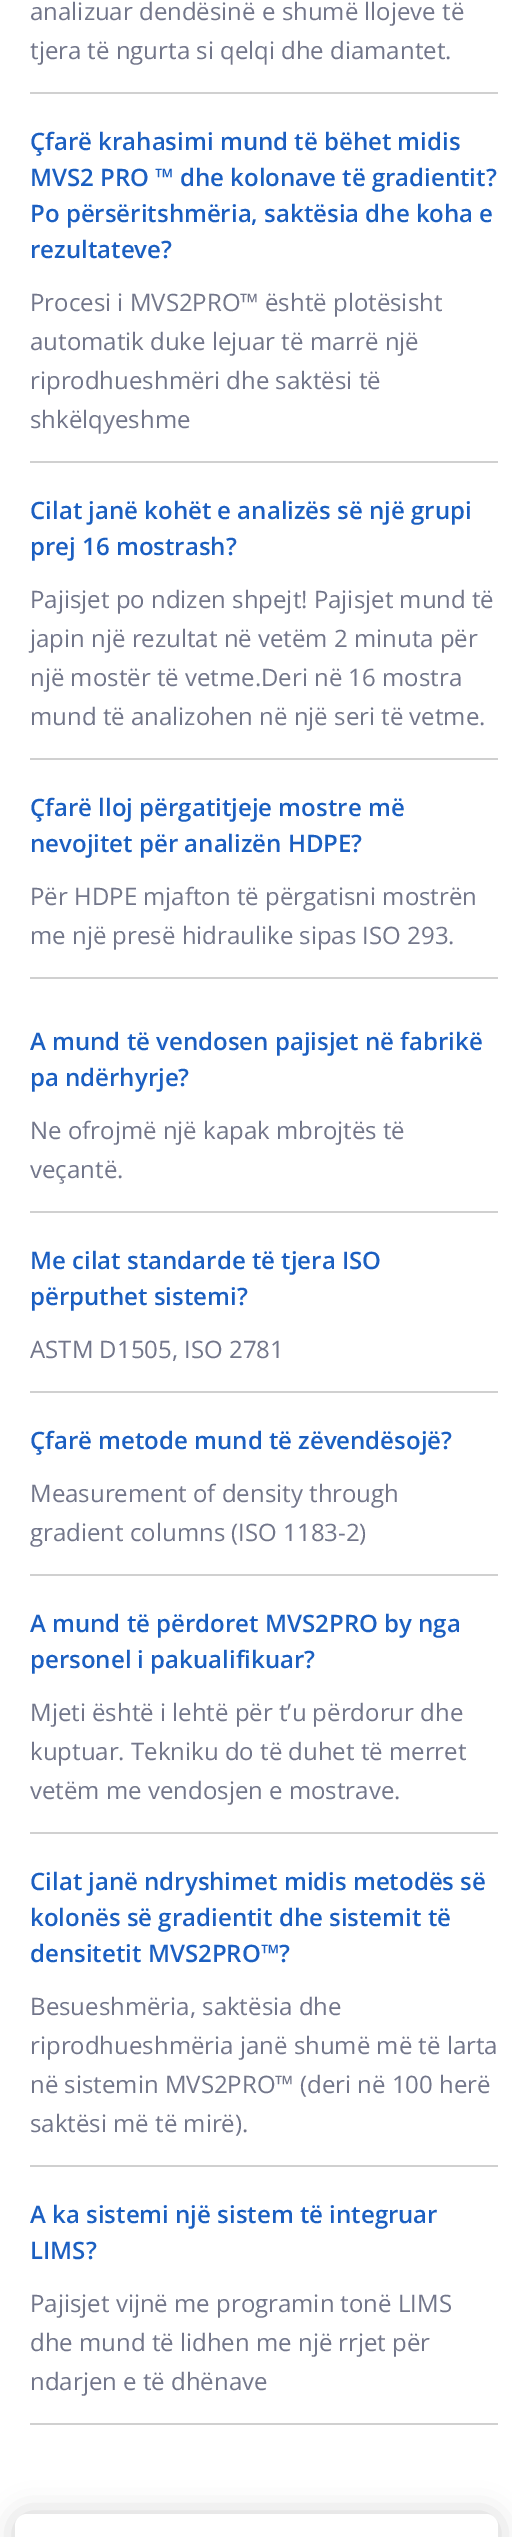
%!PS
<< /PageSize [512 2537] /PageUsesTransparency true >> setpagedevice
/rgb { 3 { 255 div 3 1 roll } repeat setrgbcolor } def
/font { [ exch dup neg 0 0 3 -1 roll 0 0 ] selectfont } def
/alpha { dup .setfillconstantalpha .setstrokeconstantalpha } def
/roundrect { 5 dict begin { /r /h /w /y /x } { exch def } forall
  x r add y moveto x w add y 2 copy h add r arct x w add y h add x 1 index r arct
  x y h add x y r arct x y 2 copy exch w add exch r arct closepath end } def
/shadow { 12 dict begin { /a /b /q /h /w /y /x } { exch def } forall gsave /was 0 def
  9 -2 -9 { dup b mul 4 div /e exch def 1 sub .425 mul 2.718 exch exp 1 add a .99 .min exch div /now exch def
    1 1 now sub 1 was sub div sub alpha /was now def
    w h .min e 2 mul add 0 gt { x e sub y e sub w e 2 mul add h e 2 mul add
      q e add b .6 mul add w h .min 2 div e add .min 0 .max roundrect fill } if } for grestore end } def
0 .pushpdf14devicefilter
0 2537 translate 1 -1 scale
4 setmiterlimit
255 255 255 rgb
0 0 512 2537 rectfill
[
  [30 92 468 2 208 208 208]
  [30 461 468 2 208 208 208]
  [30 758 468 2 208 208 208]
  [30 977 468 2 208 208 208]
  [30 1211 468 2 208 208 208]
  [30 1391 468 2 208 208 208]
  [30 1574 468 2 208 208 208]
  [30 1832 468 2 208 208 208]
  [30 2165 468 2 208 208 208]
  [30 2423 468 2 208 208 208]
] { aload pop rgb rectfill } forall
0 0 0 rgb
15 2514 483 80 12 15 0.18 shadow
255 255 255 rgb
15 2514 483 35 12 roundrect fill
/OpenSans-Regular 24 font
114 118 138 rgb
30 20 moveto (analizuar dendësinë e shumë llojeve të) show
30 59 moveto (tjera të ngurta si qelqi dhe diamantet.) show
/OpenSans-SemiBold 24 font
27 95 193 rgb
[
  [(Çfarë krahasimi mund të bëhet midis) 30 150]
  [(MVS2 PRO ™ dhe kolonave të gradientit?) 30 186]
  [(Po përsëritshmëria, saktësia dhe koha e) 30 222]
  [(rezultateve?) 30 258]
] { aload pop moveto show } forall
/OpenSans-Regular 24 font
114 118 138 rgb
[
  [(Procesi i MVS2PRO™ është plotësisht) 30 311]
  [(automatik duke lejuar të marrë një) 30 350]
  [(riprodhueshmëri dhe saktësi të) 30 389]
  [(shkëlqyeshme) 30 428]
] { aload pop moveto show } forall
/OpenSans-SemiBold 24 font
27 95 193 rgb
30 519 moveto (Cilat janë kohët e analizës së një grupi) show
30 555 moveto (prej 16 mostrash?) show
/OpenSans-Regular 24 font
114 118 138 rgb
[
  [(Pajisjet po ndizen shpejt! Pajisjet mund të) 30 608]
  [(japin një rezultat në vetëm 2 minuta për) 30 647]
  [(një mostër të vetme.Deri në 16 mostra) 30 686]
  [(mund të analizohen në një seri të vetme.) 30 725]
] { aload pop moveto show } forall
/OpenSans-SemiBold 24 font
27 95 193 rgb
30 816 moveto (Çfarë lloj përgatitjeje mostre më) show
30 852 moveto (nevojitet për analizën HDPE?) show
/OpenSans-Regular 24 font
114 118 138 rgb
30 905 moveto (Për HDPE mjafton të përgatisni mostrën) show
30 944 moveto (me një presë hidraulike sipas ISO 293.) show
/OpenSans-SemiBold 24 font
27 95 193 rgb
30 1050 moveto (A mund të vendosen pajisjet në fabrikë) show
30 1086 moveto (pa ndërhyrje?) show
/OpenSans-Regular 24 font
114 118 138 rgb
30 1139 moveto (Ne ofrojmë një kapak mbrojtës të) show
30 1178 moveto (veçantë.) show
/OpenSans-SemiBold 24 font
27 95 193 rgb
30 1269 moveto (Me cilat standarde të tjera ISO) show
30 1305 moveto (përputhet sistemi?) show
/OpenSans-Regular 24 font
114 118 138 rgb
30 1358 moveto (ASTM D1505, ISO 2781) show
/OpenSans-SemiBold 24 font
27 95 193 rgb
30 1449 moveto (Çfarë metode mund të zëvendësojë?) show
/OpenSans-Regular 24 font
114 118 138 rgb
30 1502 moveto (Measurement of density through) show
30 1541 moveto (gradient columns \(ISO 1183-2\)) show
/OpenSans-SemiBold 24 font
27 95 193 rgb
30 1632 moveto (A mund të përdoret MVS2PRO by nga) show
30 1668 moveto (personel i pakualifikuar?) show
/OpenSans-Regular 24 font
114 118 138 rgb
[
  [(Mjeti është i lehtë për t’u përdorur dhe) 30 1721]
  [(kuptuar. Tekniku do të duhet të merret) 30 1760]
  [(vetëm me vendosjen e mostrave.) 30 1799]
] { aload pop moveto show } forall
/OpenSans-SemiBold 24 font
27 95 193 rgb
[
  [(Cilat janë ndryshimet midis metodës së) 30 1890]
  [(kolonës së gradientit dhe sistemit të) 30 1926]
  [(densitetit MVS2PRO™?) 30 1962]
] { aload pop moveto show } forall
/OpenSans-Regular 24 font
114 118 138 rgb
[
  [(Besueshmëria, saktësia dhe) 30 2015]
  [(riprodhueshmëria janë shumë më të larta) 30 2054]
  [(në sistemin MVS2PRO™ \(deri në 100 herë) 30 2093]
  [(saktësi më të mirë\).) 30 2132]
] { aload pop moveto show } forall
/OpenSans-SemiBold 24 font
27 95 193 rgb
30 2223 moveto (A ka sistemi një sistem të integruar) show
30 2259 moveto (LIMS?) show
/OpenSans-Regular 24 font
114 118 138 rgb
[
  [(Pajisjet vijnë me programin tonë LIMS) 30 2312]
  [(dhe mund të lidhen me një rrjet për) 30 2351]
  [(ndarjen e të dhënave) 30 2390]
] { aload pop moveto show } forall
.poppdf14devicefilter showpage
